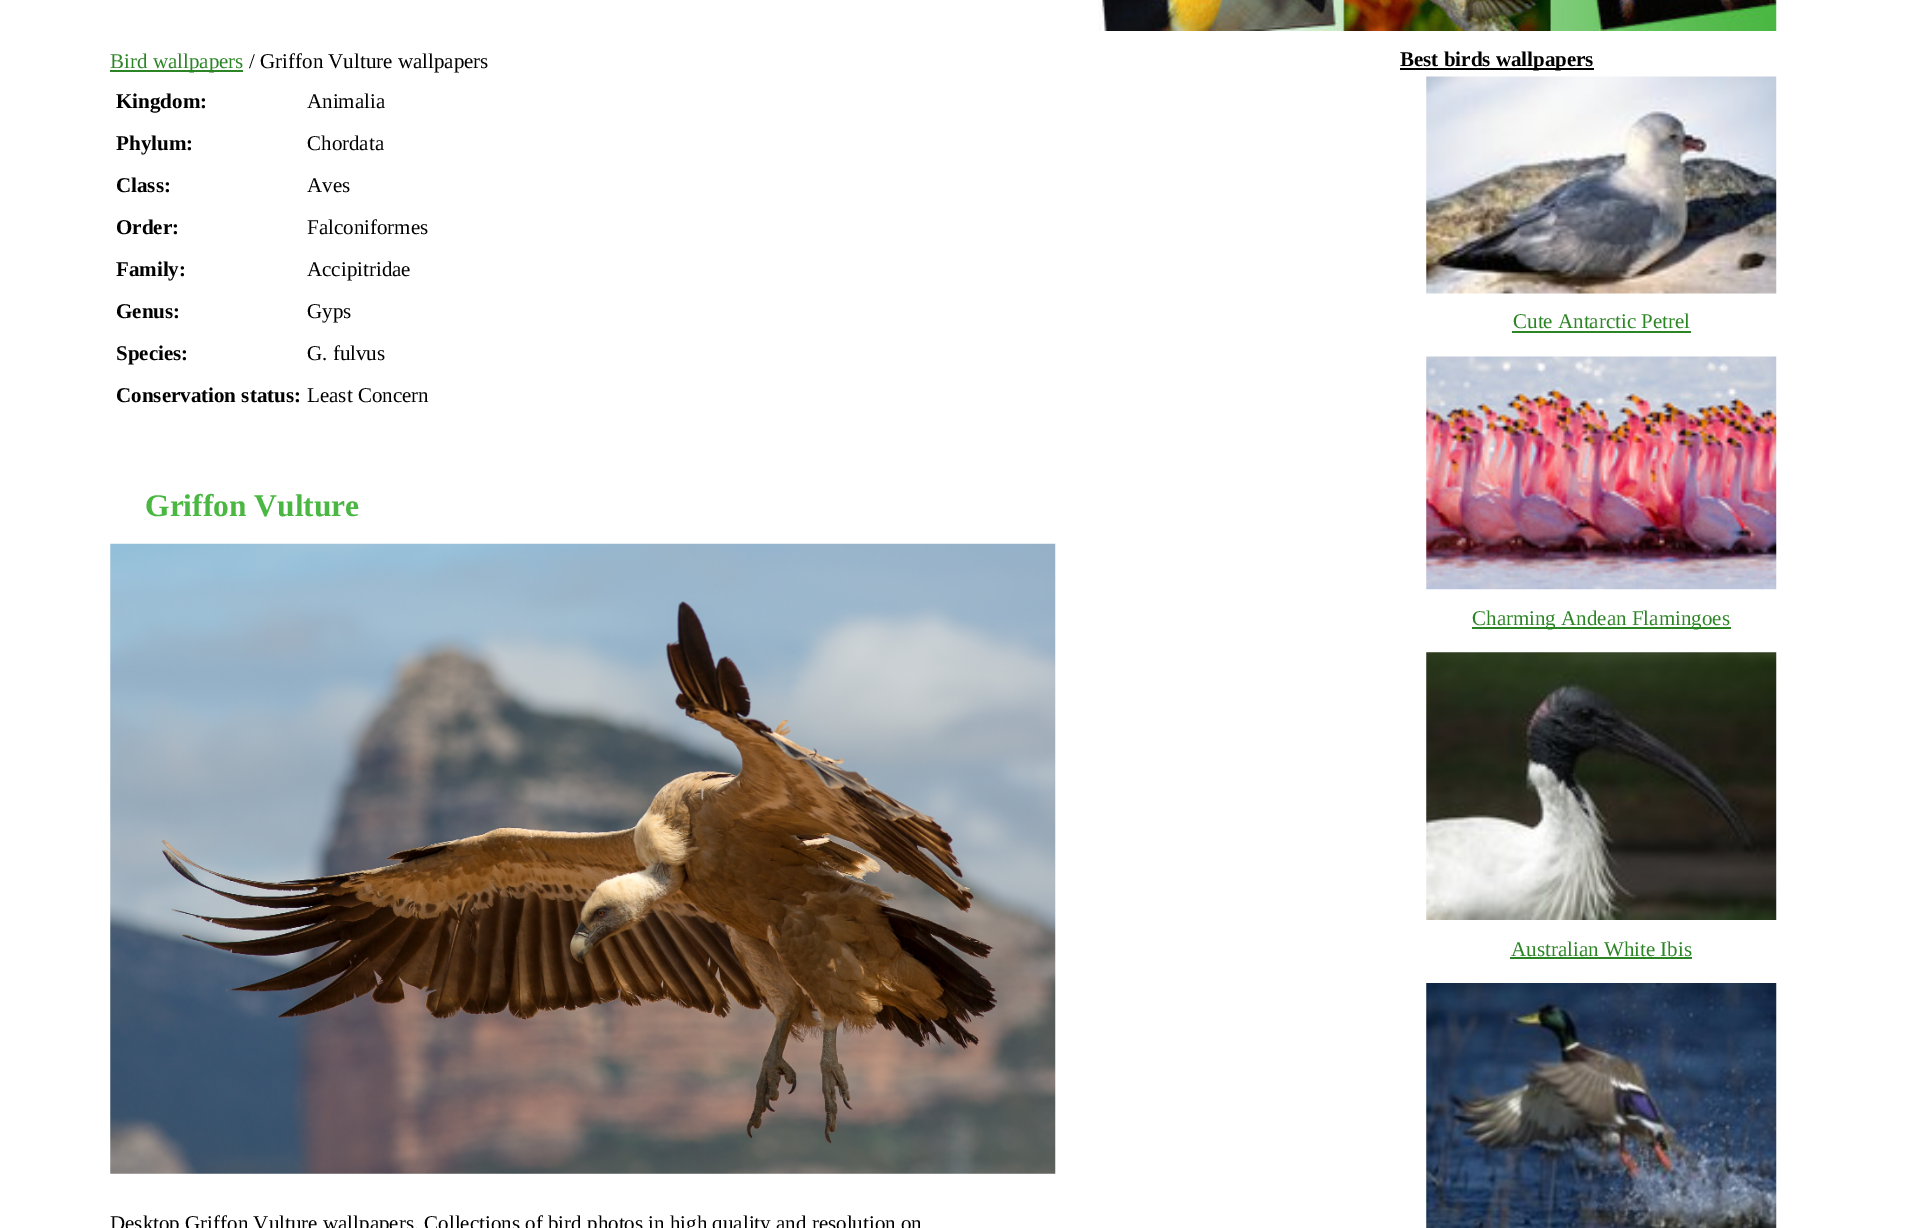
%!PS
<< /PageSize [1907 1228] >> setpagedevice
/rgb { 3 { 255 div 3 1 roll } repeat setrgbcolor } def
/font { [ exch dup neg 0 0 3 -1 roll 0 0 ] selectfont } def
/picture { 5 dict begin { /h /w /y /x /name } { exch def } forall
  gsave x y translate w h scale
  w h 8 [w 0 0 h 0 0] name (r) file false 3 colorimage grestore end } def
0 1228 translate 1 -1 scale
4 setmiterlimit
255 255 255 rgb
0 0 1907 1228 rectfill
(img/1.rgb) 1098 0 679 31 picture
43 133 37 rgb
110 70 133 2 rectfill
(img/2.rgb) 110 543 946 631 picture
0 0 0 rgb
1400 68 194 2 rectfill
(img/3.rgb) 1426 76 351 218 picture
43 133 37 rgb
1512 331 179 2 rectfill
(img/4.rgb) 1426 356 351 234 picture
1472 627 259 2 rectfill
(img/5.rgb) 1426 652 351 268 picture
1510 957 182 2 rectfill
(img/6.rgb) 1426 983 351 245 picture
/LiberationSerif-Regular 21 font
110 68 moveto (Bird wallpapers) show
0 0 0 rgb
249 68 moveto (/ Griffon Vulture wallpapers) show
/LiberationSerif-Bold 21 font
116 108 moveto (Kingdom:) show
/LiberationSerif-Regular 21 font
307 108 moveto (Animalia) show
/LiberationSerif-Bold 21 font
116 150 moveto (Phylum:) show
/LiberationSerif-Regular 21 font
307 150 moveto (Chordata) show
/LiberationSerif-Bold 21 font
116 192 moveto (Class:) show
/LiberationSerif-Regular 21 font
307 192 moveto (Aves) show
/LiberationSerif-Bold 21 font
116 234 moveto (Order:) show
/LiberationSerif-Regular 21 font
307 234 moveto (Falconiformes) show
/LiberationSerif-Bold 21 font
116 276 moveto (Family:) show
/LiberationSerif-Regular 21 font
307 276 moveto (Accipitridae) show
/LiberationSerif-Bold 21 font
116 318 moveto (Genus:) show
/LiberationSerif-Regular 21 font
307 318 moveto (Gyps) show
/LiberationSerif-Bold 21 font
116 360 moveto (Species:) show
/LiberationSerif-Regular 21 font
307 360 moveto (G. fulvus) show
/LiberationSerif-Bold 21 font
116 402 moveto (Conservation status:) show
/LiberationSerif-Regular 21 font
307 402 moveto (Least Concern) show
/LiberationSerif-Bold 31.5 font
74 183 66 rgb
145 516 moveto (Griffon Vulture) show
/LiberationSerif-Regular 21 font
0 0 0 rgb
110 1230 moveto (Desktop Griffon Vulture wallpapers. Collections of bird photos in high quality and resolution on) show
/LiberationSerif-Bold 21 font
1400 66 moveto (Best birds wallpapers) show
/LiberationSerif-Regular 21 font
43 133 37 rgb
[
  [(Cute Antarctic Petrel) 1513 328]
  [(Charming Andean Flamingoes) 1472 625]
  [(Australian White Ibis) 1511 956]
] { aload pop moveto show } forall
showpage
